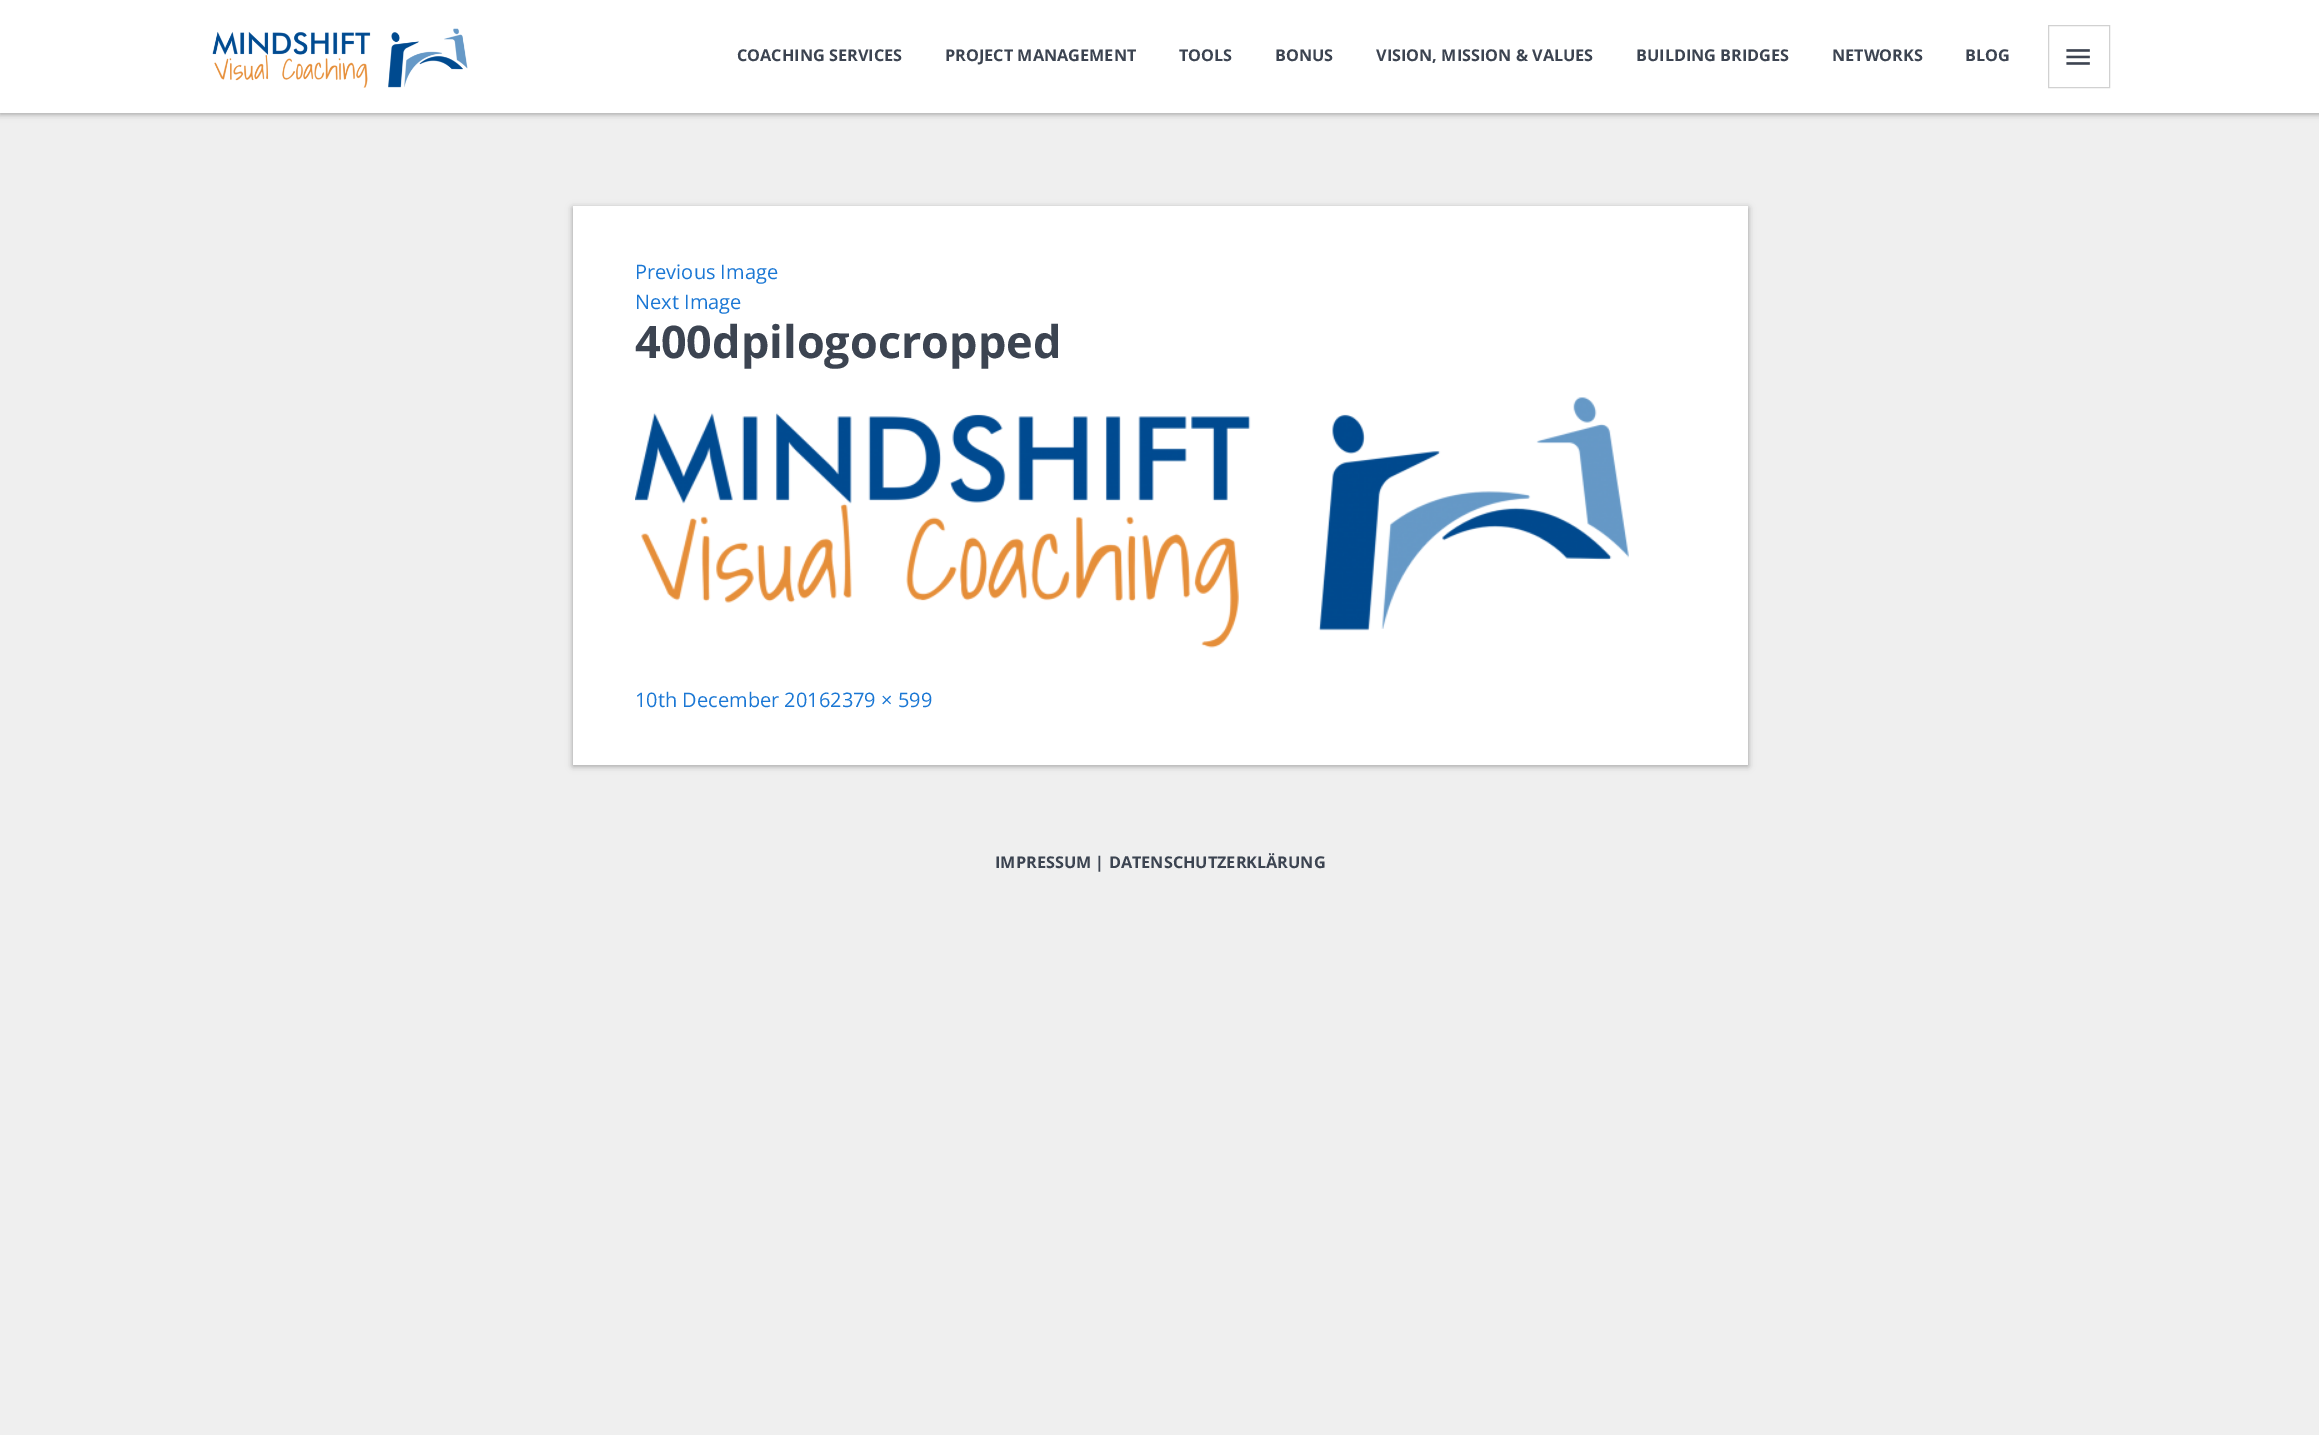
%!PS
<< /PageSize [2319 1435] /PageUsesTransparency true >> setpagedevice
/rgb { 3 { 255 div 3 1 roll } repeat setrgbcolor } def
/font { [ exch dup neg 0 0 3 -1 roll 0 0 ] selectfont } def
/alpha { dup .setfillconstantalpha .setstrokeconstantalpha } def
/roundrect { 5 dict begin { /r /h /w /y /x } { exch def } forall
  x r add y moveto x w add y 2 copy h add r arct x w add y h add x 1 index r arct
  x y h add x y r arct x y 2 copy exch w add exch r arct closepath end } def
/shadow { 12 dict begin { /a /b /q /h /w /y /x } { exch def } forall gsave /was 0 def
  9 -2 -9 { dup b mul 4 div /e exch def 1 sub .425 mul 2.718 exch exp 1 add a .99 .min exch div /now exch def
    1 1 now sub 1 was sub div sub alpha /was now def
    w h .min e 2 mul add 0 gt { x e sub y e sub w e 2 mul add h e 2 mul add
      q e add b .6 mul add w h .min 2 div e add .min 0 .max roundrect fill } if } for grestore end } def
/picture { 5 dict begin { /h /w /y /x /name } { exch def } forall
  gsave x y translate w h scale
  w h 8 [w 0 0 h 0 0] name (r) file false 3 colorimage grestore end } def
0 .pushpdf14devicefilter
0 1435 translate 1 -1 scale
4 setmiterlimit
239 239 239 rgb
0 0 2319 1435 rectfill
0 0 0 rgb
0 1 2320 113 0 2.5 0.24 shadow
0 1 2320 113 0 4 0.12 shadow
255 255 255 rgb
0 0 2319 113 rectfill
(img/1.rgb) 212 28 256 60 picture
209 209 209 rgb
2048.5 25.5 61 62 rectstroke
(img/2.rgb) 2066 49 24 16 picture
0 0 0 rgb
573 208 1175 558 0 2.5 0.24 shadow
573 208 1175 558 0 4 0.12 shadow
255 255 255 rgb
573 206 1175 559 rectfill
(img/3.rgb) 635 397 994 251 picture
/OpenSans-Bold 16.25 font
60 68 81 rgb
[
  [(COACHING SERVICES) 737 61]
  [(PROJECT MANAGEMENT) 945 61]
  [(TOOLS) 1179 61]
  [(BONUS) 1275 61]
  [(VISION, MISSION & VALUES) 1376 61]
  [(BUILDING BRIDGES) 1636 61]
  [(NETWORKS) 1832 61]
  [(BLOG) 1965 61]
] { aload pop moveto show } forall
/OpenSans-Regular 20 font
26 119 212 rgb
635 279 moveto (Previous Image) show
635 309 moveto (Next Image) show
/OpenSans-Bold 45 font
60 68 81 rgb
635 358 moveto (400dpilogocropped) show
/OpenSans-Regular 20 font
26 119 212 rgb
635 707 moveto (10th December 20162379 × 599) show
/OpenSans-Bold 16.25 font
60 68 81 rgb
995 868 moveto (IMPRESSUM | DATENSCHUTZERKLÄRUNG) show
.poppdf14devicefilter showpage
